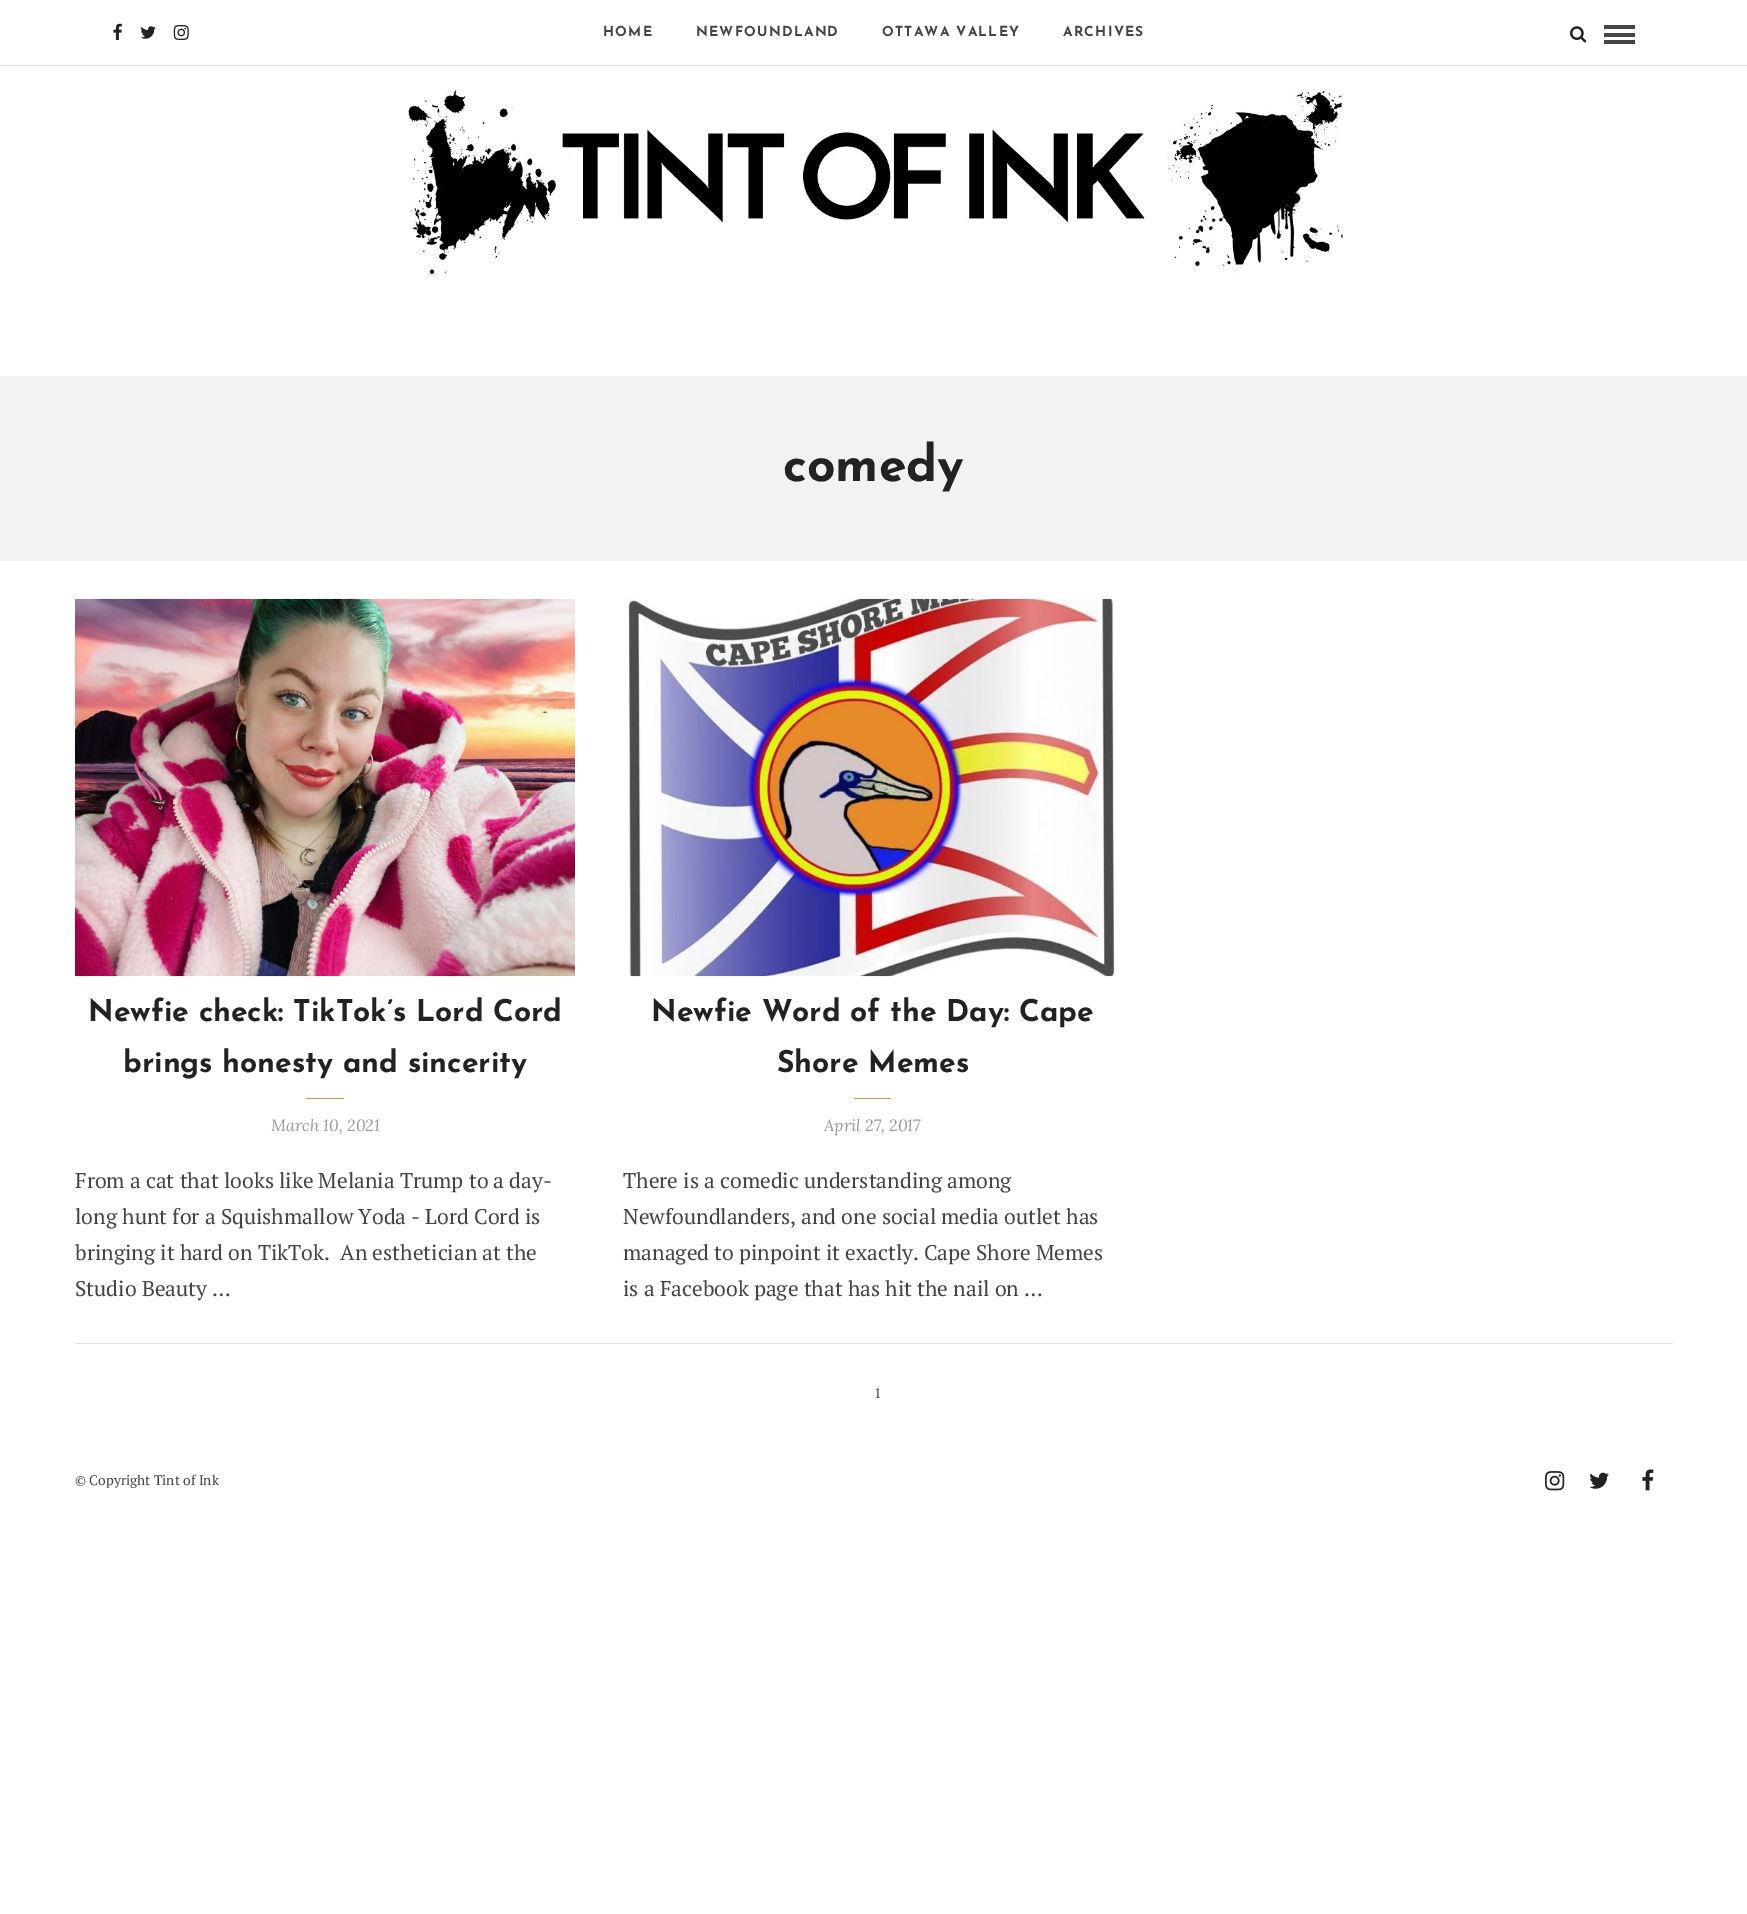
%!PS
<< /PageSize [1747 1914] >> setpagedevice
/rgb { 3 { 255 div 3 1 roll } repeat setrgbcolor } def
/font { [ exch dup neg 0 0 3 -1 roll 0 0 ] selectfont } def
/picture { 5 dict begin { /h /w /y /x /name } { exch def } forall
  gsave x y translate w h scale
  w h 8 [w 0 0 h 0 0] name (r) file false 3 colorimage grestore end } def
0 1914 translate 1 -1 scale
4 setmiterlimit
255 255 255 rgb
0 0 1747 1914 rectfill
225 225 225 rgb
0 65 1747 1 rectfill
(img/1.rgb) 113 23 9 17 picture
(img/2.rgb) 140 26 16 13 picture
(img/3.rgb) 173 25 16 15 picture
(img/4.rgb) 1570 26 17 17 picture
[
  [1604 25 31 4 68 68 68]
  [1604 33 31 4 68 68 68]
  [1604 40 31 4 68 68 68]
] { aload pop rgb rectfill } forall
(img/5.rgb) 408 90 935 188 picture
242 242 242 rgb
0 376 1747 185 rectfill
(img/6.rgb) 75 598 500 379 picture
190 150 86 rgb
306 1098 38 1 rectfill
(img/7.rgb) 628 598 487 379 picture
854 1098 37 1 rectfill
225 225 225 rgb
75 1343 1598 1 rectfill
(img/8.rgb) 1545 1471 20 20 picture
(img/9.rgb) 1589 1472 20 17 picture
(img/10.rgb) 1642 1469 12 22 picture
/JosefinSans-Bold 13.75 font
68 68 68 rgb
603 36 moveto 1.25 0 (HOME) ashow
696 36 moveto 1.25 0 (NEWFOUNDLAND) ashow
882 36 moveto 1.25 0 (OTTAWA VALLEY) ashow
1063 36 moveto 1.25 0 (ARCHIVES) ashow
/JosefinSans-Bold 50 font
34 34 34 rgb
783 481 moveto (comedy) show
/JosefinSans-Bold 30 font
88 1021 moveto (Newfie check: TikTok’s Lord Cord) show
123 1072 moveto (brings honesty and sincerity) show
/Lora-Italic 16.25 font
153 153 153 rgb
271 1131 moveto (March 10, 2021) show
/PTSerif-Regular 21.25 font
68 68 68 rgb
[
  [(From a cat that looks like Melania Trump to a day-) 75 1188]
  [(long hunt for a Squishmallow Yoda - Lord Cord is) 75 1224]
  [(bringing it hard on TikTok.) 75 1260]
  [(An esthetician at the) 340 1260]
  [(Studio Beauty …) 75 1296]
] { aload pop moveto show } forall
/JosefinSans-Bold 30 font
34 34 34 rgb
651 1021 moveto (Newfie Word of the Day: Cape) show
777 1072 moveto (Shore Memes) show
/Lora-Italic 16.25 font
153 153 153 rgb
824 1131 moveto (April 27, 2017) show
/PTSerif-Regular 21.25 font
68 68 68 rgb
[
  [(There is a comedic understanding among) 623 1188]
  [(Newfoundlanders, and one social media outlet has) 623 1224]
  [(managed to pinpoint it exactly. Cape Shore Memes) 623 1260]
  [(is a Facebook page that has hit the nail on …) 623 1296]
] { aload pop moveto show } forall
/PTSerif-Regular 13.75 font
874 1398 moveto (1) show
75 1485 moveto (© Copyright Tint of Ink) show
showpage
